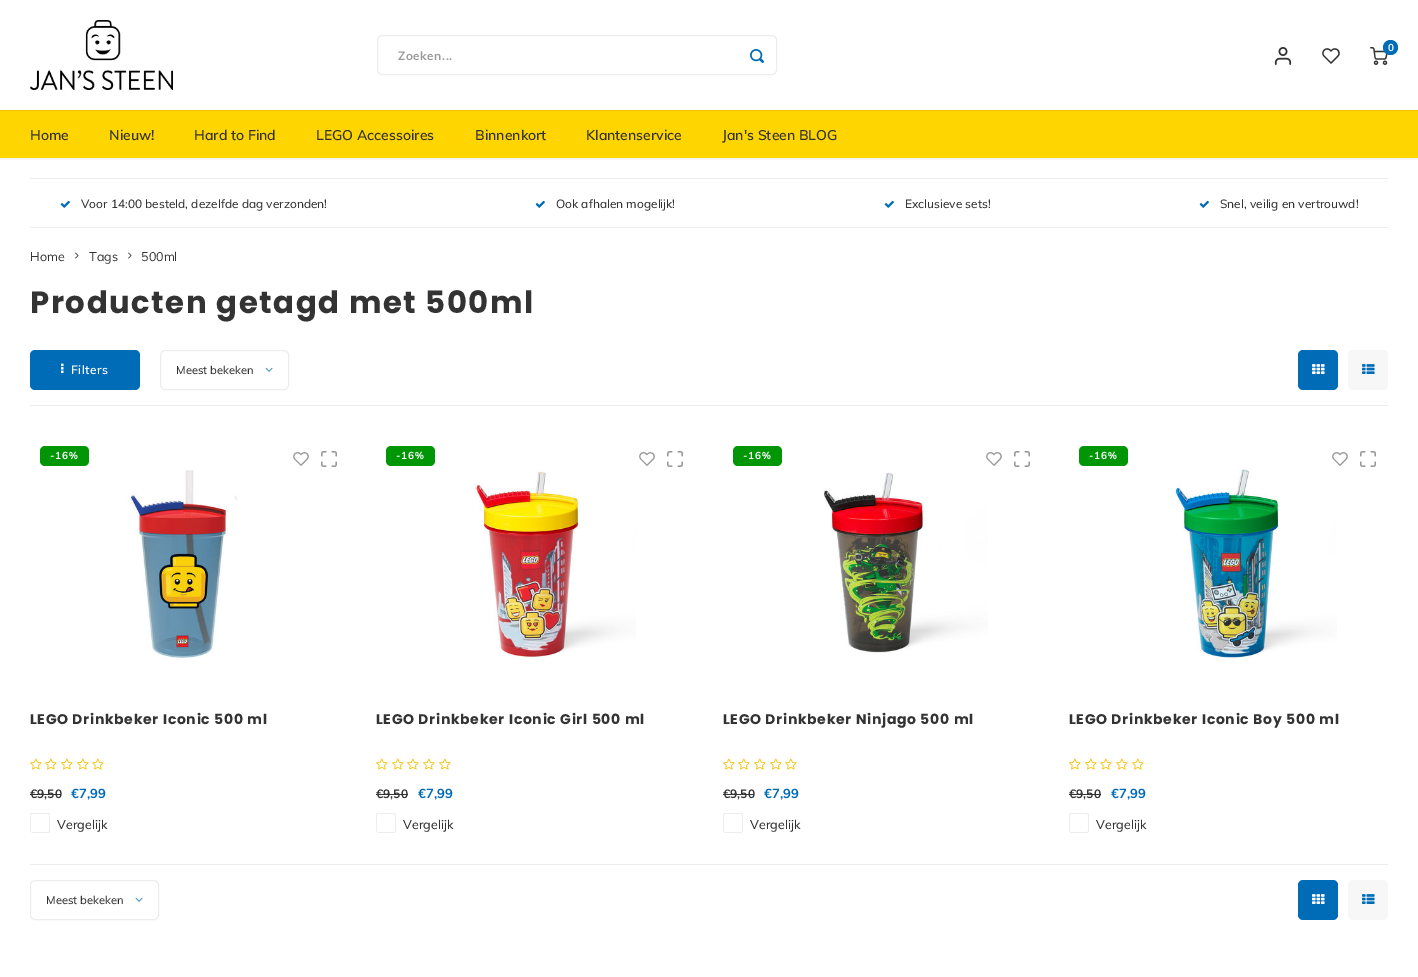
%!PS
<< /PageSize [1418 977] /PageUsesTransparency true >> setpagedevice
/rgb { 3 { 255 div 3 1 roll } repeat setrgbcolor } def
/font { [ exch dup neg 0 0 3 -1 roll 0 0 ] selectfont } def
/alpha { dup .setfillconstantalpha .setstrokeconstantalpha } def
/circle { newpath 0 360 arc closepath } def
/roundrect { 5 dict begin { /r /h /w /y /x } { exch def } forall
  x r add y moveto x w add y 2 copy h add r arct x w add y h add x 1 index r arct
  x y h add x y r arct x y 2 copy exch w add exch r arct closepath end } def
/shadow { 12 dict begin { /a /b /q /h /w /y /x } { exch def } forall gsave /was 0 def
  9 -2 -9 { dup b mul 4 div /e exch def 1 sub .425 mul 2.718 exch exp 1 add a .99 .min exch div /now exch def
    1 1 now sub 1 was sub div sub alpha /was now def
    w h .min e 2 mul add 0 gt { x e sub y e sub w e 2 mul add h e 2 mul add
      q e add b .6 mul add w h .min 2 div e add .min 0 .max roundrect fill } if } for grestore end } def
/picture { 5 dict begin { /h /w /y /x /name } { exch def } forall
  gsave x y translate w h scale
  w h 8 [w 0 0 h 0 0] name (r) file false 3 colorimage grestore end } def
0 .pushpdf14devicefilter
0 977 translate 1 -1 scale
4 setmiterlimit
255 255 255 rgb
0 0 1418 977 rectfill
gsave
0 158 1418 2 rectclip
0 0 0 rgb
0 1 1418 158 0 2 0.08 shadow
grestore
(img/1.rgb) 30 20 143 70 picture
(img/2.rgb) 1274 47 18 18 picture
(img/3.rgb) 1322 48 18 16 picture
(img/4.rgb) 1370 47 18 18 picture
0 108 183 rgb
1390.5 47.5 7.5 circle fill
237 237 237 rgb
377.5 35.5 399 39 4.5 roundrect stroke
(img/5.rgb) 750 49 14 14 picture
[
  [0 111 1418 47 255 213 0]
  [0 110 1418 1 237 198 0]
  [30 178 1358 1 237 237 237]
  [30 227 1358 1 237 237 237]
] { aload pop rgb rectfill } forall
(img/6.rgb) 60 200 10 8 picture
(img/6.rgb) 535 200 10 8 picture
(img/6.rgb) 884 200 10 8 picture
(img/6.rgb) 1199 200 10 8 picture
(img/7.rgb) 75 252 4 7 picture
(img/7.rgb) 128 252 4 7 picture
30 405 1358 1 rectfill
0 108 183 rgb
30 350 110 40 5 roundrect fill
(img/8.rgb) 61 363 3 10 picture
237 237 237 rgb
160.5 350.5 128 39 4.5 roundrect stroke
(img/9.rgb) 265 367 8 5 picture
0 108 183 rgb
1298 350 40 40 5 roundrect fill
(img/10.rgb) 1312 364 13 10 picture
247 247 247 rgb
1348 350 40 40 5 roundrect fill
(img/11.rgb) 1362 364 13 10 picture
0 150 6 rgb
40 446 49 20 5 roundrect fill
(img/12.rgb) 293 452 16 14 picture
(img/13.rgb) 321 451 16 16 picture
(img/14.rgb) 127 470 111 188 picture
(img/15.rgb) 30 758 12 12 picture
(img/15.rgb) 45 758 12 12 picture
(img/15.rgb) 61 758 12 12 picture
(img/15.rgb) 77 758 12 12 picture
(img/15.rgb) 92 758 12 12 picture
51 51 51 rgb
30 794 31 1 rectfill
237 237 237 rgb
32 813 moveto 31 813 30 814 30 815 curveto 30 829 lineto 30 830.5 31 832 32 833 curveto 48 833 lineto 49 833 50 832 50 831 curveto 50 815 lineto 50 814 49 813 48 813 curveto closepath 32 814 moveto 31.5 814 31 814.5 31 815 curveto 31 831 lineto 31 831.5 31.5 832 32 832 curveto 48 832 lineto 48.5 832 49 831.5 49 831 curveto 49 815 lineto 49 814.5 48.5 814 48 814 curveto closepath eofill
0 150 6 rgb
386 446 49 20 5 roundrect fill
(img/12.rgb) 639 452 16 14 picture
(img/13.rgb) 667 451 16 16 picture
(img/16.rgb) 474 469 162 189 picture
(img/15.rgb) 376 758 12 12 picture
(img/15.rgb) 392 758 12 12 picture
(img/15.rgb) 407 758 12 12 picture
(img/15.rgb) 423 758 12 12 picture
(img/15.rgb) 439 758 12 12 picture
51 51 51 rgb
376 794 32 1 rectfill
237 237 237 rgb
378 813 moveto 377 813 376 814 376 815 curveto 376 829 lineto 376 830.5 377 832 378 833 curveto 394 833 lineto 395 833 396 832 396 831 curveto 396 815 lineto 396 814 395 813 394 813 curveto closepath 378 814 moveto 377.5 814 377 814.5 377 815 curveto 377 831 lineto 377 831.5 377.5 832 378 832 curveto 394 832 lineto 394.5 832 395 831.5 395 831 curveto 395 815 lineto 395 814.5 394.5 814 394 814 curveto closepath eofill
0 150 6 rgb
733 446 49 20 5 roundrect fill
(img/12.rgb) 986 452 16 14 picture
(img/13.rgb) 1014 451 16 16 picture
(img/17.rgb) 823 473 165 181 picture
(img/15.rgb) 723 758 12 12 picture
(img/15.rgb) 738 758 12 12 picture
(img/15.rgb) 754 758 12 12 picture
(img/15.rgb) 770 758 12 12 picture
(img/15.rgb) 785 758 12 12 picture
51 51 51 rgb
723 794 31 1 rectfill
237 237 237 rgb
725 813 moveto 724 813 723 814 723 815 curveto 723 829 lineto 723 830.5 724 832 725 833 curveto 741 833 lineto 742 833 743 832 743 831 curveto 743 815 lineto 743 814 742 813 741 813 curveto closepath 725 814 moveto 724.5 814 724 814.5 724 815 curveto 724 831 lineto 724 831.5 724.5 832 725 832 curveto 741 832 lineto 741.5 832 742 831.5 742 831 curveto 742 815 lineto 742 814.5 741.5 814 741 814 curveto closepath eofill
0 150 6 rgb
1079 446 49 20 5 roundrect fill
(img/12.rgb) 1332 452 16 14 picture
(img/13.rgb) 1360 451 16 16 picture
(img/18.rgb) 1172 468 165 190 picture
(img/15.rgb) 1069 758 12 12 picture
(img/15.rgb) 1085 758 12 12 picture
(img/15.rgb) 1100 758 12 12 picture
(img/15.rgb) 1116 758 12 12 picture
(img/15.rgb) 1132 758 12 12 picture
51 51 51 rgb
1069 794 32 1 rectfill
237 237 237 rgb
1071 813 moveto 1070 813 1069 814 1069 815 curveto 1069 829 lineto 1069 830.5 1070 832 1071 833 curveto 1087 833 lineto 1088 833 1089 832 1089 831 curveto 1089 815 lineto 1089 814 1088 813 1087 813 curveto closepath 1071 814 moveto 1070.5 814 1070 814.5 1070 815 curveto 1070 831 lineto 1070 831.5 1070.5 832 1071 832 curveto 1087 832 lineto 1087.5 832 1088 831.5 1088 831 curveto 1088 815 lineto 1088 814.5 1087.5 814 1087 814 curveto closepath eofill
30 864 1358 1 rectfill
30.5 880.5 128 39 4.5 roundrect stroke
(img/9.rgb) 135 897 8 5 picture
0 108 183 rgb
1298 880 40 40 5 roundrect fill
(img/10.rgb) 1312 894 13 10 picture
247 247 247 rgb
1348 880 40 40 5 roundrect fill
(img/11.rgb) 1362 894 13 10 picture
/Muli-Bold 10 font
255 255 255 rgb
1388 51 moveto (0) show
/Muli-Bold 11.9 font
153 153 153 rgb
398 60 moveto 0.5 0 (Zoeken...) ashow
/Muli-SemiBold 14 font
51 51 51 rgb
[
  [(Home) 30 140]
  [(Nieuw!) 109 140]
  [(Hard to Find) 194 140]
  [(LEGO Accessoires) 316 140]
  [(Binnenkort) 475 140]
  [(Klantenservice) 586 140]
  [(Jan's Steen BLOG) 722 140]
] { aload pop moveto show } forall
/Muli-Medium 11.9 font
[
  [(Voor 14:00 besteld, dezelfde dag verzonden!) 81 208]
  [(Ook afhalen mogelijk!) 556 208]
  [(Exclusieve sets!) 905 208]
  [(Snel, veilig en vertrouwd!) 1220 208]
] { aload pop moveto show } forall
/Muli-Regular 12.5 font
[
  [(Home) 30 261]
  [(Tags) 89 261]
  [(500ml) 141 261]
] { aload pop moveto show } forall
/Poppins-Bold 30.75 font
30 313 moveto 1.55 0 (Producten getagd met 500ml) ashow
/Muli-SemiBold 12 font
255 255 255 rgb
71 374 moveto 0.5 0 (Filters) ashow
/Muli-Medium 11.25 font
51 51 51 rgb
176 374 moveto (Meest bekeken) show
/Muli-Bold 10 font
255 255 255 rgb
50 459 moveto 1 0 (-16%) ashow
/Poppins-Bold 14 font
51 51 51 rgb
30 724 moveto 0.7 0 (LEGO Drinkbeker Iconic 500 ml) ashow
gsave
30 436 317 398 5 roundrect clip newpath
/Muli-Bold 12 font
30 798 moveto (€9,50) show
grestore
/Muli-Bold 13 font
0 108 183 rgb
71 798 moveto (€7,99) show
/Muli-Medium 12.5 font
51 51 51 rgb
57 829 moveto (Vergelijk) show
/Muli-Bold 10 font
255 255 255 rgb
396 459 moveto 1 0 (-16%) ashow
/Poppins-Bold 14 font
51 51 51 rgb
376 724 moveto 0.7 0 (LEGO Drinkbeker Iconic Girl 500 ml) ashow
/Muli-Bold 12 font
376 798 moveto (€9,50) show
/Muli-Bold 13 font
0 108 183 rgb
418 798 moveto (€7,99) show
/Muli-Medium 12.5 font
51 51 51 rgb
403 829 moveto (Vergelijk) show
/Muli-Bold 10 font
255 255 255 rgb
743 459 moveto 1 0 (-16%) ashow
/Poppins-Bold 14 font
51 51 51 rgb
723 724 moveto 0.7 0 (LEGO Drinkbeker Ninjago 500 ml) ashow
gsave
723 436 317 398 5 roundrect clip newpath
/Muli-Bold 12 font
723 798 moveto (€9,50) show
grestore
/Muli-Bold 13 font
0 108 183 rgb
764 798 moveto (€7,99) show
/Muli-Medium 12.5 font
51 51 51 rgb
750 829 moveto (Vergelijk) show
/Muli-Bold 10 font
255 255 255 rgb
1089 459 moveto 1 0 (-16%) ashow
/Poppins-Bold 14 font
51 51 51 rgb
1069 724 moveto 0.7 0 (LEGO Drinkbeker Iconic Boy 500 ml) ashow
/Muli-Bold 12 font
1069 798 moveto (€9,50) show
/Muli-Bold 13 font
0 108 183 rgb
1111 798 moveto (€7,99) show
/Muli-Medium 12.5 font
51 51 51 rgb
1096 829 moveto (Vergelijk) show
/Muli-Medium 11.25 font
46 904 moveto (Meest bekeken) show
.poppdf14devicefilter showpage
